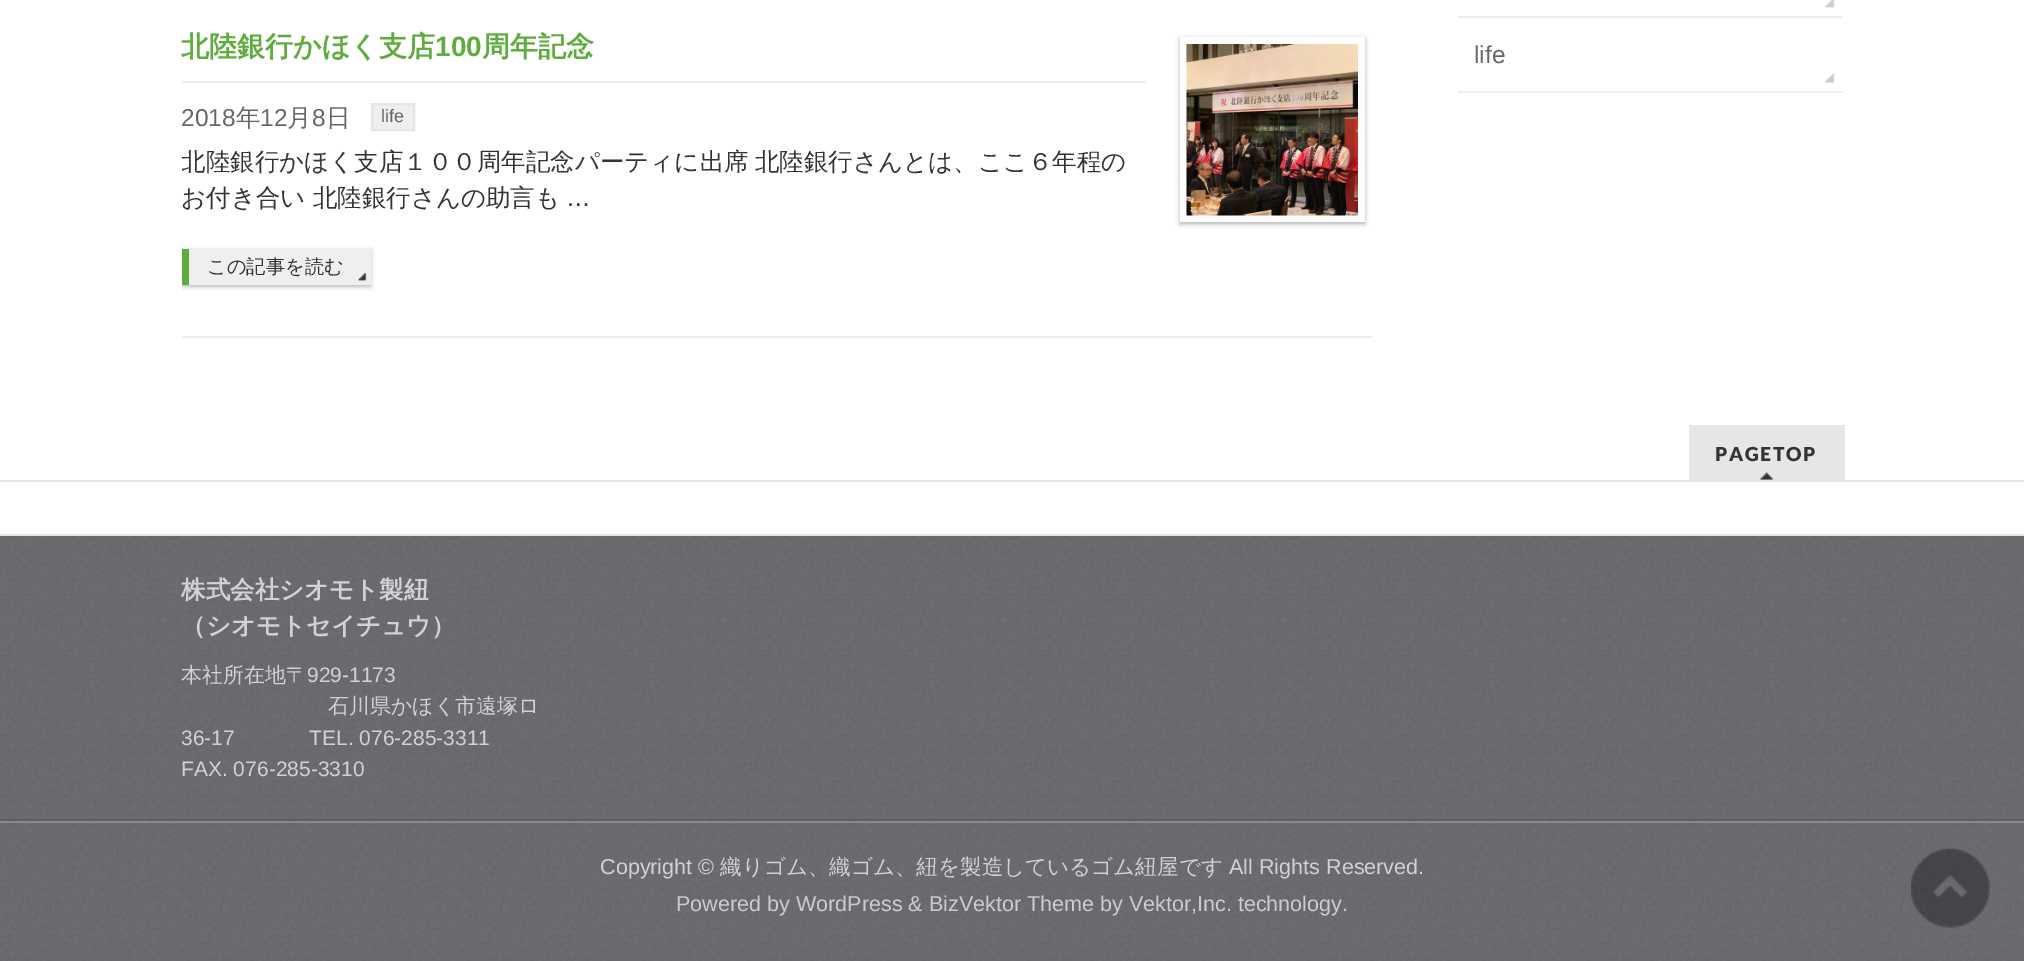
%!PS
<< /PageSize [2024 961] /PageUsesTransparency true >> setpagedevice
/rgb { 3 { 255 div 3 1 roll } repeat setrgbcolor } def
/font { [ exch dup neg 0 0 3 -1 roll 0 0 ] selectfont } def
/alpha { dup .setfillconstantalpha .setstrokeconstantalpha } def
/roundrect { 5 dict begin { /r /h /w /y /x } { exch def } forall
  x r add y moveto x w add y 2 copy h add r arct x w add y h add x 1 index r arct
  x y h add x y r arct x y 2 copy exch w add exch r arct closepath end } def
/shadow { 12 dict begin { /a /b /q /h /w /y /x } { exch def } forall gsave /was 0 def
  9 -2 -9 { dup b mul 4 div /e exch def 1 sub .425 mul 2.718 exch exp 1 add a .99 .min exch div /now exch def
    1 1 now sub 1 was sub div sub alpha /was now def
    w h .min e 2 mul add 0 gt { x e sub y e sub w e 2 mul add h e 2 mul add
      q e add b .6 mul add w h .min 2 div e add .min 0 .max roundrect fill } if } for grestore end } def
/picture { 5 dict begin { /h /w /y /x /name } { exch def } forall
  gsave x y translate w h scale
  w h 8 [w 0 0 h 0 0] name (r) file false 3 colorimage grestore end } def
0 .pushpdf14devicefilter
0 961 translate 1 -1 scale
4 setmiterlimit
255 255 255 rgb
0 0 2024 961 rectfill
238 238 238 rgb
182 336 1190 2 rectfill
182 81 964 2 rectfill
239 239 239 rgb
372 104 moveto 414 104 lineto 414 130 lineto 372 130 lineto closepath gsave fill grestore
229 229 229 rgb
2 setlinewidth
stroke
gsave
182 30 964 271 rectclip
0 0 0 rgb
182 250 189 37 0 2 0.25 shadow
grestore
239 239 239 rgb
189 249 182 36 rectfill
(img/1.rgb) 358 273 9 8 picture
94 173 60 rgb
182 249 7 36 rectfill
gsave
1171 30 moveto 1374 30 lineto 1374 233 lineto 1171 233 lineto closepath 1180 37 moveto 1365 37 lineto 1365 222 lineto 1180 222 lineto closepath eoclip newpath
0 0 0 rgb
1180 39 185 185 0 2.5 0.3 shadow
grestore
(img/2.rgb) 1186 44 172 172 picture
238 238 238 rgb
1458 16 385 2 rectfill
(img/3.rgb) 1825 0 10 8 picture
1458 91 385 2 rectfill
(img/4.rgb) 1825 73 10 10 picture
230 230 230 rgb
1689 425 156 55 rectfill
(img/5.rgb) 1760 472 13 8 picture
0 480 2024 2 rectfill
0 534 2024 2 rectfill
(img/6.rgb) 0 536 2024 283 picture
95 94 99 rgb
0 819 2024 2 rectfill
(img/7.rgb) 0 823 2024 138 picture
138 137 140 rgb
0 821 2024 2 rectfill
(img/8.rgb) 1911 848 79 80 picture
/WenQuanYiZenHei-Bold 28 font
94 173 60 rgb
181 56 moveto (北陸銀行かほく支店) show
/LiberationSans-Bold 28 font
435 56 moveto (100) show
/WenQuanYiZenHei-Bold 28 font
482 56 moveto (周年記念) show
/LiberationSans-Regular 24.5 font
102 102 102 rgb
181 126 moveto (2018) show
/WenQuanYiZenHei-Medium 24.5 font
236 126 moveto (年) show
/LiberationSans-Regular 24.5 font
260 126 moveto (12) show
/WenQuanYiZenHei-Medium 24.5 font
287 126 moveto (月) show
/LiberationSans-Regular 24.5 font
312 126 moveto (8) show
/WenQuanYiZenHei-Medium 24.5 font
326 126 moveto (日) show
/LiberationSans-Regular 18 font
381 122 moveto (life) show
gsave
182 30 964 271 rectclip
/WenQuanYiZenHei-Medium 24.5 font
51 51 51 rgb
181 170 moveto -1 0 32 (北陸銀行かほく支店１００周年記念パーティに出席 北陸銀行さんとは、ここ６年程の) widthshow
grestore
/WenQuanYiZenHei-Medium 24.5 font
51 51 51 rgb
181 206 moveto (お付き合い 北陸銀行さんの助言も) show
/LiberationSans-Regular 24.5 font
566 206 moveto (…) show
/WenQuanYiZenHei-Medium 19.25 font
207 273 moveto (この記事を読む) show
/LiberationSans-Regular 24.5 font
102 102 102 rgb
1474 63 moveto (life) show
/Lato-Black 19.25 font
51 51 51 rgb
1715 461 moveto 1.75 0 (PAGETOP) ashow
/WenQuanYiZenHei-Bold 24.5 font
210 210 211 rgb
181 598 moveto (株式会社シオモト製紐) show
181 634 moveto (（シオモトセイチュウ）) show
/WenQuanYiZenHei-Medium 21 font
181 682 moveto (本社所在地〒) show
/LiberationSans-Regular 21 font
307 682 moveto (929-1173) show
/WenQuanYiZenHei-Medium 21 font
328 713 moveto (石川県かほく市遠塚ロ) show
/LiberationSans-Regular 21 font
[
  [(36-17) 181 745]
  [(TEL. 076-285-3311) 309 745]
  [(FAX. 076-285-3310) 181 776]
] { aload pop moveto show } forall
/LiberationSans-Regular 21.55 font
600 874 moveto (Copyright ©) show
/WenQuanYiZenHei-Medium 21.55 font
720 874 moveto (織りゴム、織ゴム、紐を製造しているゴム紐屋です) show
/LiberationSans-Regular 21.55 font
1229 874 moveto (All Rights Reserved.) show
204 204 204 rgb
676 911 moveto (Powered by WordPress & BizVektor Theme by Vektor,Inc. technology.) show
.poppdf14devicefilter showpage
